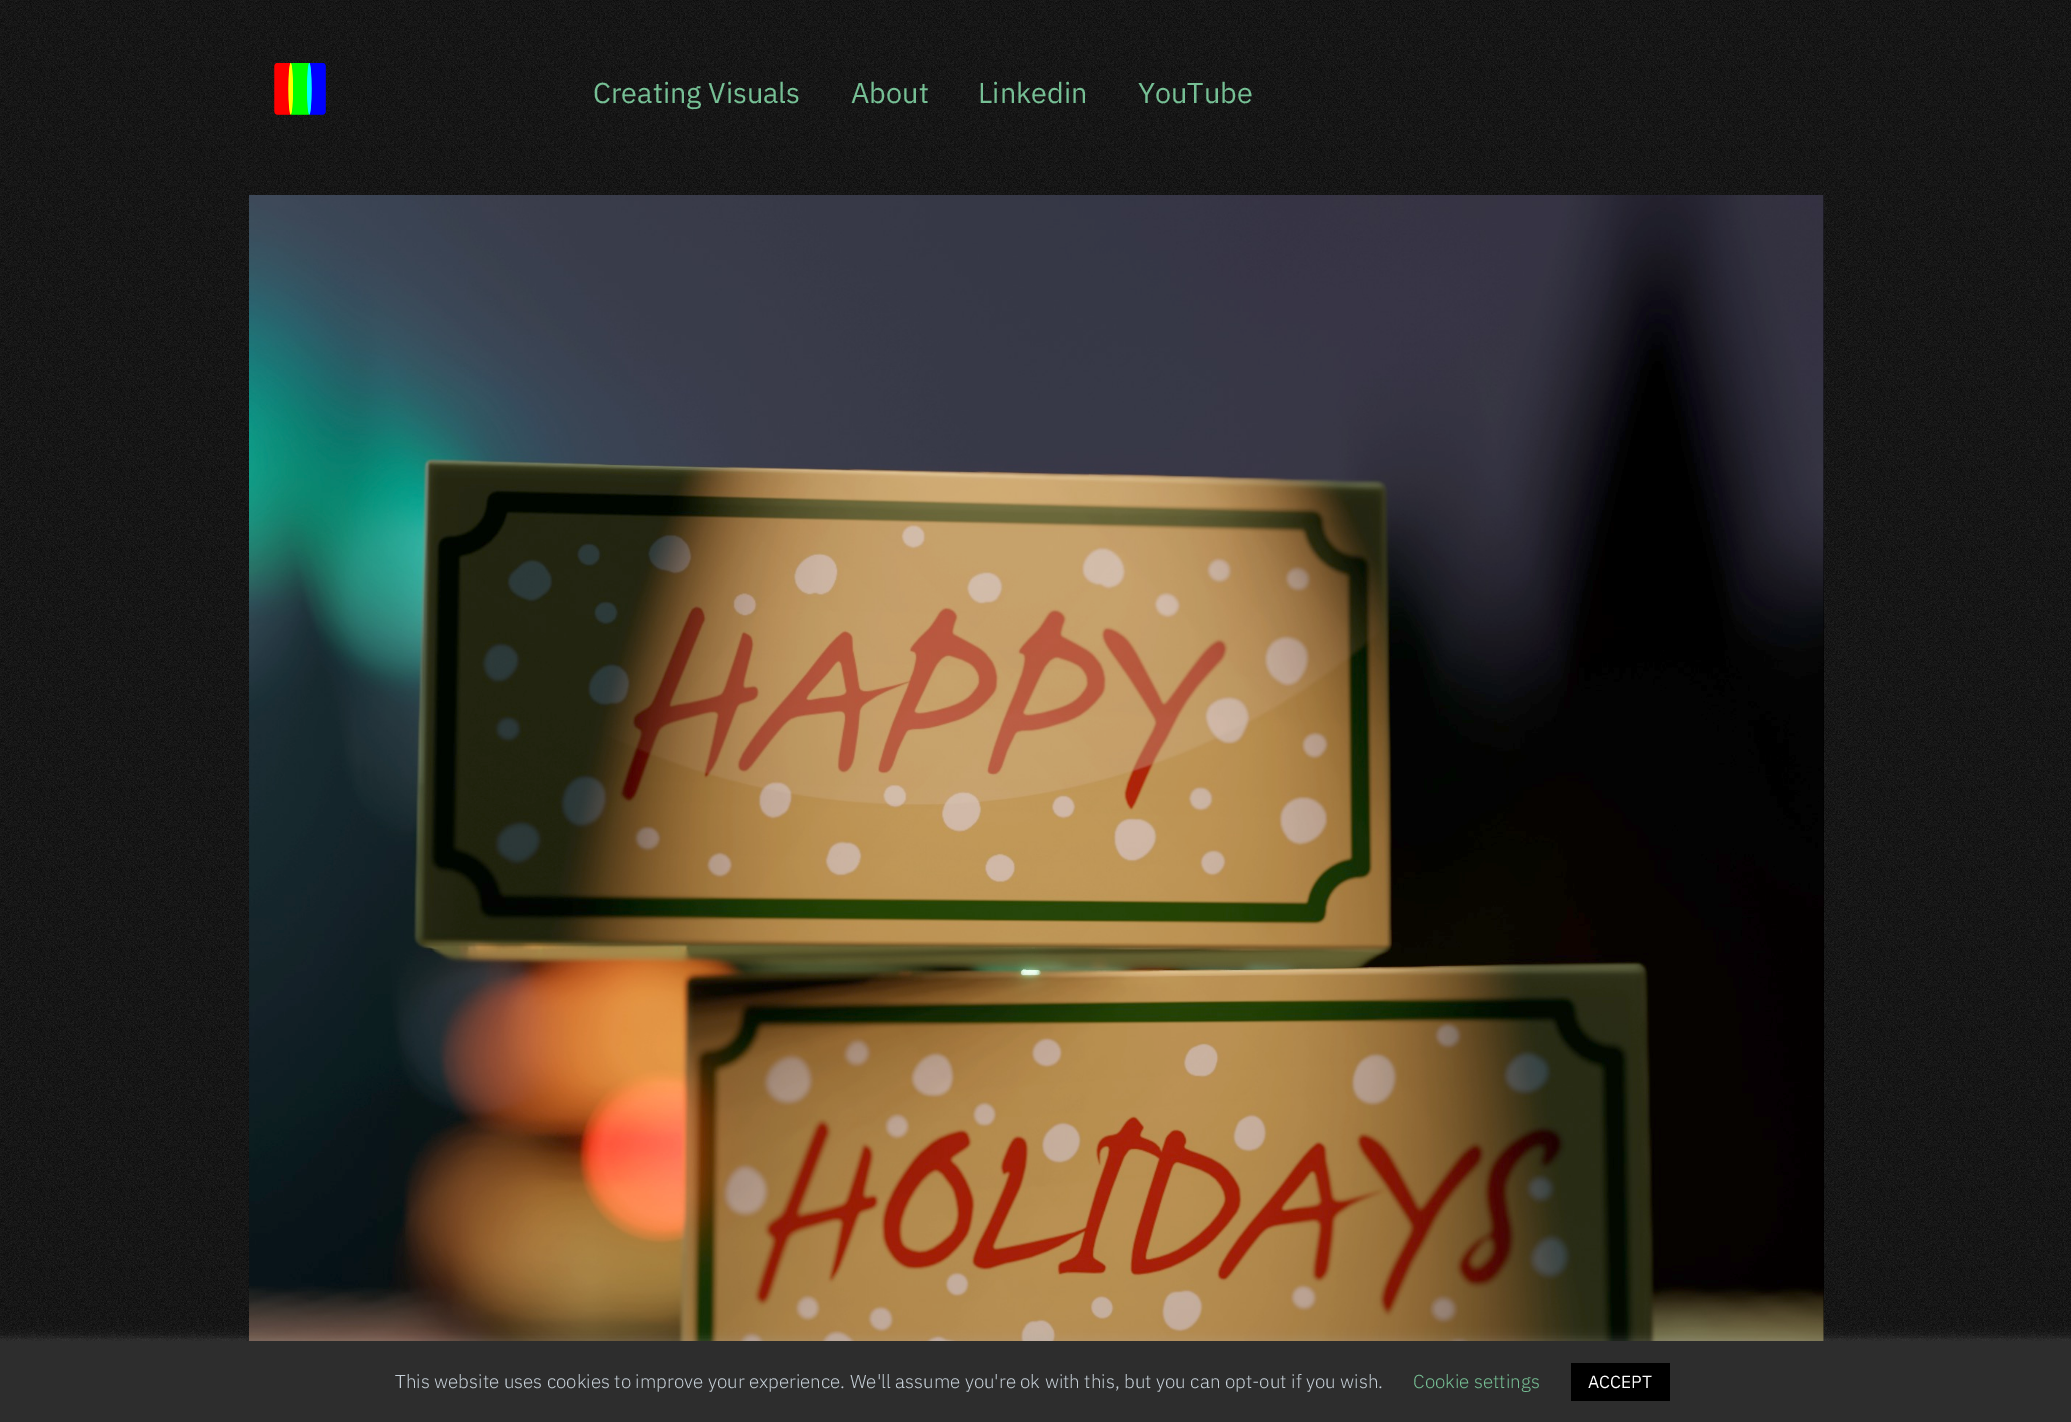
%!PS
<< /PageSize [2071 1422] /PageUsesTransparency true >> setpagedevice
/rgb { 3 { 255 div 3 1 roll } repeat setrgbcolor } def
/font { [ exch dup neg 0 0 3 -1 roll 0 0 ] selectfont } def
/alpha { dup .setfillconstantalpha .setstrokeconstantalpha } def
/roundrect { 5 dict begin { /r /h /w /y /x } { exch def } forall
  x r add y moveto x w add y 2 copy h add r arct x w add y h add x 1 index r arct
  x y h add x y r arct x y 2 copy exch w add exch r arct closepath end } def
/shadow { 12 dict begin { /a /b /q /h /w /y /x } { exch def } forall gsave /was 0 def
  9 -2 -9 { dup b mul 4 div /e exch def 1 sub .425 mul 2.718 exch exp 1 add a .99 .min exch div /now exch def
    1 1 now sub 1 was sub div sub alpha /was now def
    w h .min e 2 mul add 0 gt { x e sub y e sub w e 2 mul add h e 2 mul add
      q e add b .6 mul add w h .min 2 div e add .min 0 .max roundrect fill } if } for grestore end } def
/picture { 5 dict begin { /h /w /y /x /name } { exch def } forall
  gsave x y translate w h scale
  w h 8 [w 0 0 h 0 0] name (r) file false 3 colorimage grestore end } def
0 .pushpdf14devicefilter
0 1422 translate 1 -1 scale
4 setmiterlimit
255 255 255 rgb
0 0 2071 1422 rectfill
(img/1.rgb) 0 0 2071 1341 picture
(img/2.rgb) 274 63 52 52 picture
0 0 0 rgb
1823 195 1 1146 rectfill
(img/3.rgb) 249 195 1575 1146 picture
172 171 171 rgb
0 1340 2071 81 0 6 0.3 shadow
45 45 45 rgb
0 1341 2071 81 rectfill
0 0 0 rgb
1571 1363 99 38 rectfill
/IBMPlexSans-Regular 28.75 font
118 192 149 rgb
[
  [(Creating Visuals) 593 103]
  [(About) 851 103]
  [(Linkedin) 978 103]
  [(YouTube) 1138 103]
] { aload pop moveto show } forall
/IBMPlexSans-Light 18.75 font
197 207 215 rgb
395 1388 moveto (This website uses cookies to improve your experience. We'll assume you're ok with this, but you can opt-out if you wish.) show
118 192 149 rgb
1413 1388 moveto (Cookie settings) show
/IBMPlexSans-Regular 17.5 font
255 255 255 rgb
1588 1388 moveto (ACCEPT) show
.poppdf14devicefilter showpage
